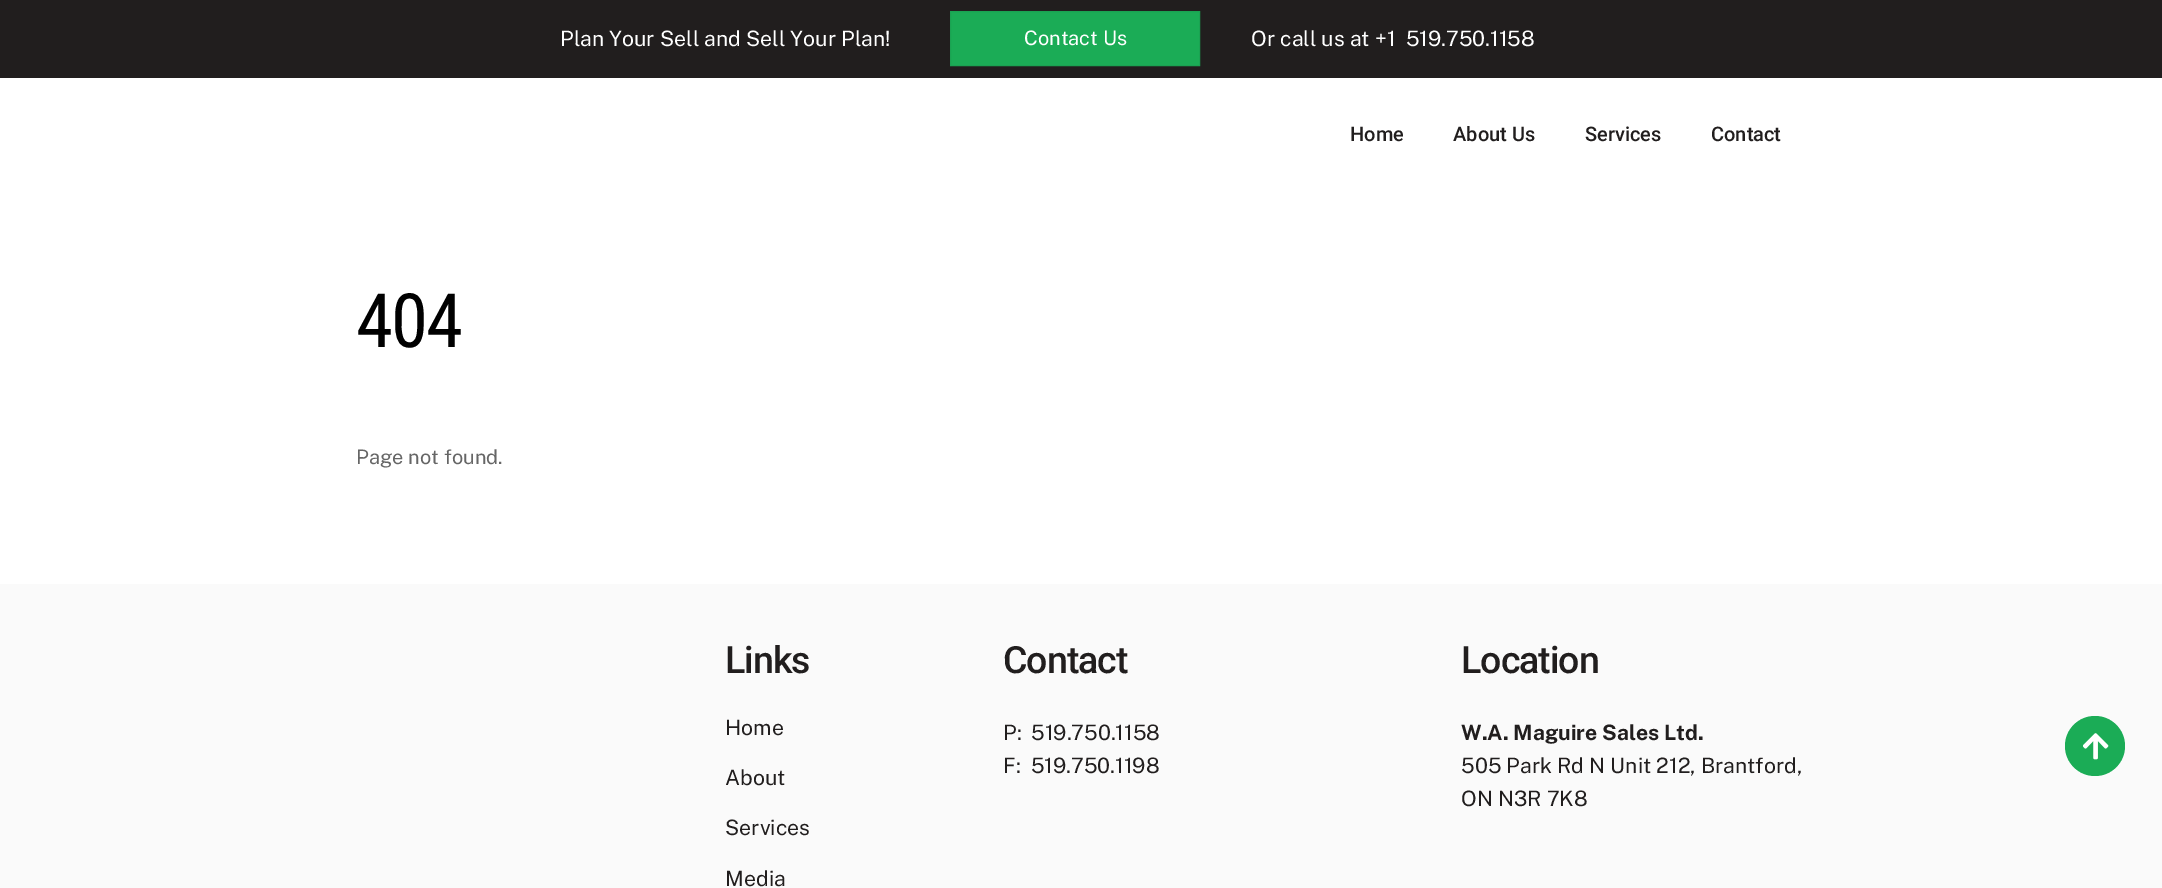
%!PS
<< /PageSize [2162 888] >> setpagedevice
/rgb { 3 { 255 div 3 1 roll } repeat setrgbcolor } def
/font { [ exch dup neg 0 0 3 -1 roll 0 0 ] selectfont } def
/circle { newpath 0 360 arc closepath } def
/picture { 5 dict begin { /h /w /y /x /name } { exch def } forall
  gsave x y translate w h scale
  w h 8 [w 0 0 h 0 0] name (r) file false 3 colorimage grestore end } def
0 888 translate 1 -1 scale
4 setmiterlimit
255 255 255 rgb
0 0 2162 888 rectfill
33 30 30 rgb
0 0 2162 78 rectfill
27 172 86 rgb
950.5 11.5 moveto 1199.5 11.5 lineto 1199.5 65.5 lineto 950.5 65.5 lineto closepath gsave fill grestore
26 163 82 rgb
stroke
250 250 250 rgb
0 584 2162 304 rectfill
27 172 86 rgb
2095 746 30 circle fill
(img/1.rgb) 2083 733 26 27 picture
/PublicSans-Regular 21.25 font
255 255 255 rgb
560 46 moveto (Plan Your Sell and Sell Your Plan!) show
/PublicSans-Regular 20 font
1024 45 moveto (Contact Us) show
/PublicSans-Regular 21.25 font
1251 46 moveto (Or call us at) show
1375 46 moveto 5 0 32 (+1 519.750.1158) widthshow
/Roboto-Medium 20 font
33 30 30 rgb
[
  [(Home) 1350 141]
  [(About Us) 1453 141]
  [(Services) 1585 141]
  [(Contact) 1711 141]
] { aload pop moveto show } forall
/RobotoCondensed-Regular 75 font
0 0 0 rgb
356 347 moveto -2 0 (404) ashow
/PublicSans-Regular 20 font
102 102 102 rgb
356 464 moveto (Page not found.) show
/Roboto-Medium 37.5 font
33 30 30 rgb
725 673 moveto -1 0 (Links) ashow
/PublicSans-Regular 21.25 font
[
  [(Home) 725 735]
  [(About) 725 785]
  [(Services) 725 835]
  [(Media) 725 886]
] { aload pop moveto show } forall
/Roboto-Medium 37.5 font
1003 673 moveto -1 0 (Contact) ashow
/PublicSans-Regular 21.25 font
[
  [(P:) 1003 740]
  [(519.750.1158) 1031 740]
  [(F:  519.750.1198) 1003 773]
] { aload pop moveto show } forall
/Roboto-Medium 37.5 font
1461 673 moveto -1 0 (Location) ashow
/PublicSans-Bold 21.25 font
1461 740 moveto (W.A. Maguire Sales Ltd.) show
/PublicSans-Regular 21.25 font
1461 773 moveto (505 Park Rd N Unit 212, Brantford,) show
1461 806 moveto (ON N3R 7K8) show
showpage
